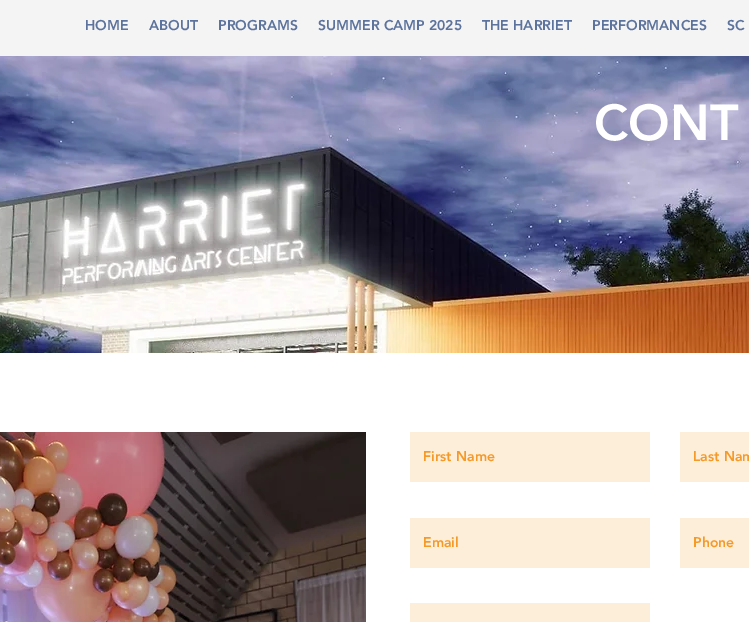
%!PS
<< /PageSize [749 622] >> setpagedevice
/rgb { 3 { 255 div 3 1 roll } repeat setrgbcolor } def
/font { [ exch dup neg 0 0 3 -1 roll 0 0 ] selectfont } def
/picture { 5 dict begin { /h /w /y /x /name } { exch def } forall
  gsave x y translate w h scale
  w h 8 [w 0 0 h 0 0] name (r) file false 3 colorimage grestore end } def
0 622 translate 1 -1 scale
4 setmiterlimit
255 255 255 rgb
0 0 749 622 rectfill
245 244 244 rgb
0 0 749 56 rectfill
(img/1.rgb) 0 56 749 297 picture
(img/2.rgb) 0 432 366 190 picture
[
  [410 432 240 50 253 238 218]
  [680 432 69 50 253 238 218]
  [410 518 240 50 253 238 218]
  [680 518 69 50 253 238 218]
  [410 603 240 19 253 238 218]
] { aload pop rgb rectfill } forall
/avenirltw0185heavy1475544-Black 14 font
92 115 157 rgb
[
  [(HOME) 85 30]
  [(ABOUT) 149 30]
  [(PROGRAMS) 218 30]
  [(SUMMER CAMP 2025) 318 30]
  [(THE HARRIET) 482 30]
  [(PERFORMANCES) 592 30]
  [(SC) 727 30]
] { aload pop moveto show } forall
/avenirltw0185heavy1475544-Black 50 font
255 255 255 rgb
594 140 moveto (CONT) show
/avenirltw0185heavy1475544-Black 14 font
245 154 40 rgb
[
  [(First Name) 423 461]
  [(Last Nam) 693 461]
  [(Email) 423 547]
  [(Phone) 693 547]
] { aload pop moveto show } forall
showpage
